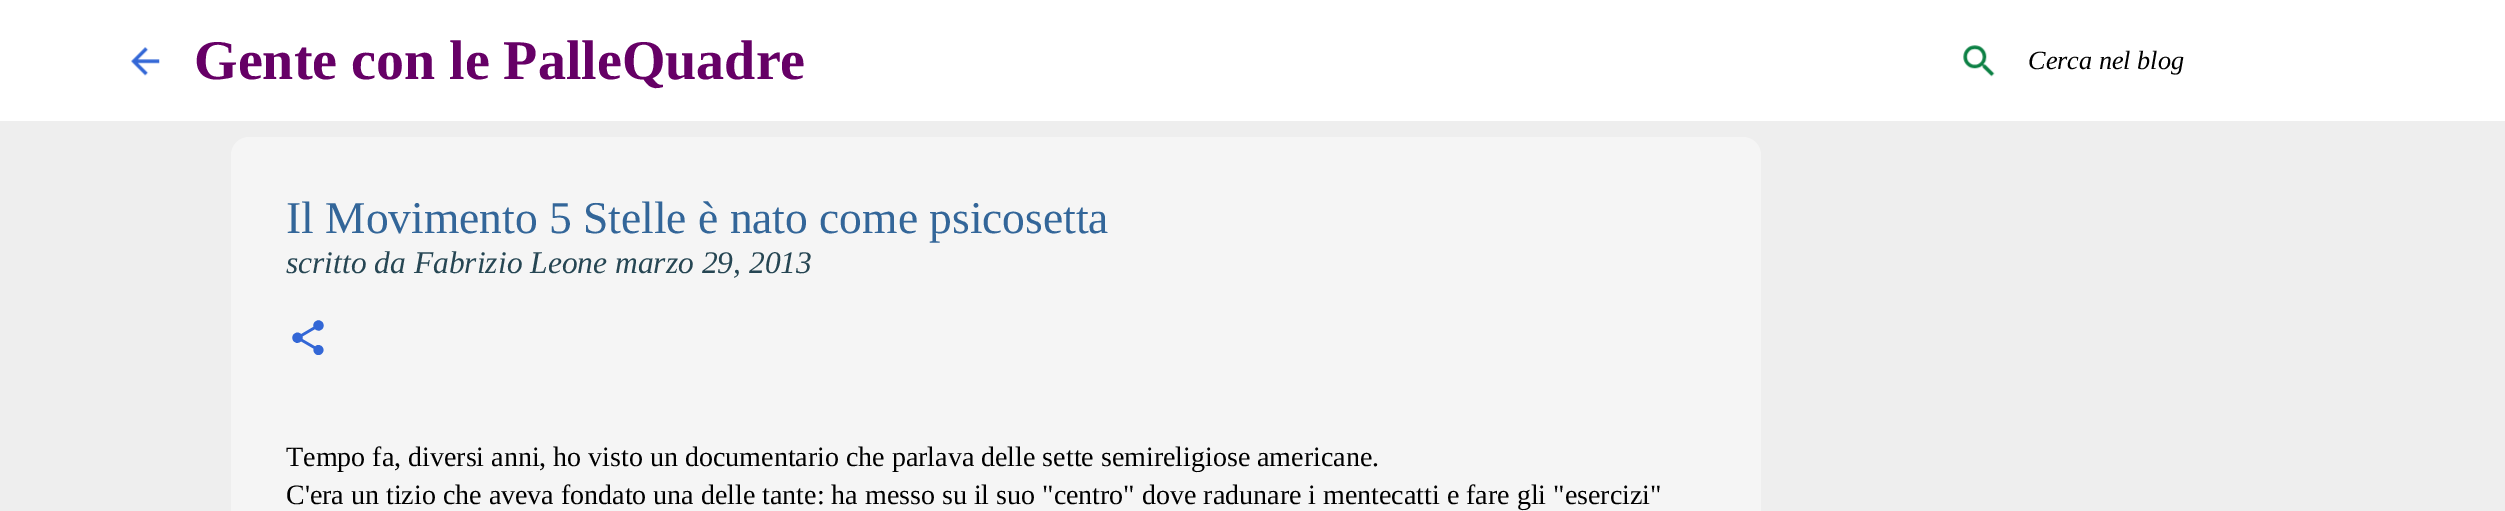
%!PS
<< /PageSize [2505 511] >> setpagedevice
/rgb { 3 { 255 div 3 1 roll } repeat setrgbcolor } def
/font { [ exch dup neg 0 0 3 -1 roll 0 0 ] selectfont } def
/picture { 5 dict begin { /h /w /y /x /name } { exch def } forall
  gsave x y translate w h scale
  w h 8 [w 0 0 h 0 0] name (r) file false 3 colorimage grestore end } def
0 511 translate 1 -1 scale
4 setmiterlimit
238 238 238 rgb
0 0 2505 511 rectfill
255 255 255 rgb
0 0 2505 121 rectfill
(img/1.rgb) 131 47 29 29 picture
(img/2.rgb) 1963 45 32 32 picture
245 245 245 rgb
249 137 moveto 1743 137 lineto 1753 137 1761 145 1761 155 curveto 1761 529 lineto 231 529 lineto 231 155 lineto 231 145 239 137 249 137 curveto closepath fill
(img/3.rgb) 292 320 32 35 picture
/LiberationSerif-Bold 56 font
102 0 102 rgb
194 79 moveto (Gente con le PalleQuadre) show
/LiberationSerif-Italic 26.25 font
0 0 0 rgb
2028 69 moveto (Cerca nel blog) show
/LiberationSerif-Regular 45.5 font
51 102 153 rgb
286 233 moveto (Il Movimento 5 Stelle è nato come psicosetta) show
/LiberationSerif-Italic 31.5 font
38 70 83 rgb
286 273 moveto (scritto da Fabrizio Leone marzo 29, 2013) show
/LiberationSerif-Regular 28 font
0 0 0 rgb
286 466 moveto (Tempo fa, diversi anni, ho visto un documentario che parlava delle sette semireligiose americane.) show
286 504 moveto (C'era un tizio che aveva fondato una delle tante: ha messo su il suo "centro" dove radunare i mentecatti e fare gli "esercizi") show
showpage
